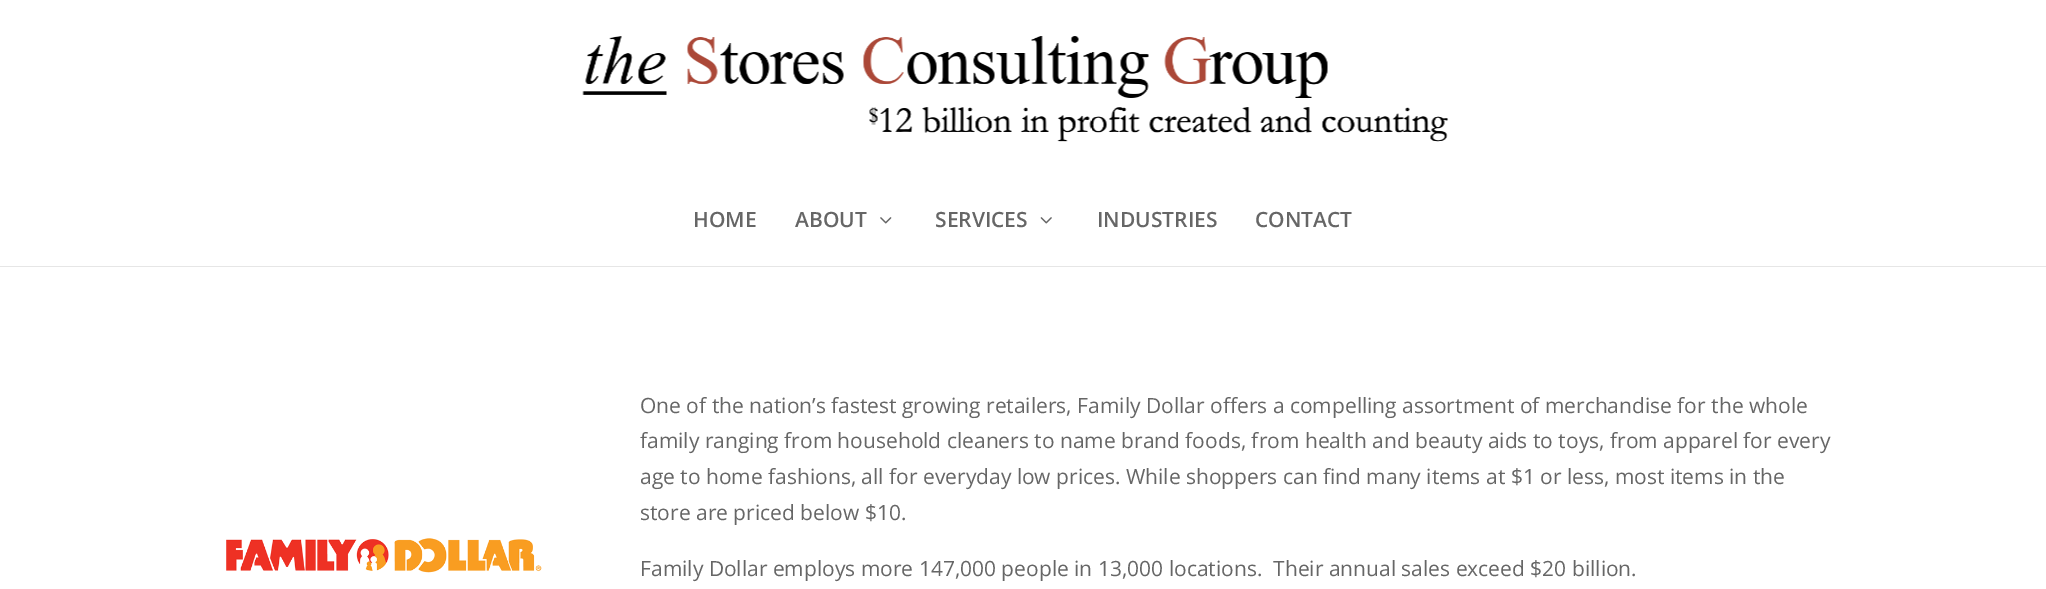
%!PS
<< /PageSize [2046 589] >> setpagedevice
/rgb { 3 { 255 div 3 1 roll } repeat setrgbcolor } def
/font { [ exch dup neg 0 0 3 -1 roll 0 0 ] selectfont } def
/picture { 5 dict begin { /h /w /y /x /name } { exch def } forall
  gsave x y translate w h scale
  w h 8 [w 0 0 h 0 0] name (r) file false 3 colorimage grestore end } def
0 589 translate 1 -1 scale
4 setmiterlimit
255 255 255 rgb
0 0 2046 589 rectfill
230 230 230 rgb
0 266 2046 1 rectfill
(img/1.rgb) 582 36 867 106 picture
(img/2.rgb) 880 217 12 7 picture
(img/3.rgb) 1040 217 12 7 picture
(img/4.rgb) 226 538 316 35 picture
/OpenSans-SemiBold 21 font
102 102 102 rgb
[
  [(HOME) 693 227]
  [(ABOUT) 795 227]
  [(SERVICES) 935 227]
  [(INDUSTRIES) 1097 227]
  [(CONTACT) 1255 227]
] { aload pop moveto show } forall
/OpenSans-Regular 21 font
[
  [(One of the nation’s fastest growing retailers, Family Dollar offers a compelling assortment of merchandise for the whole) 640 413]
  [(family ranging from household cleaners to name brand foods, from health and beauty aids to toys, from apparel for every) 640 448]
  [(age to home fashions, all for everyday low prices. While shoppers can find many items at $1 or less, most items in the) 640 484]
  [(store are priced below $10.) 640 520]
  [(Family Dollar employs more 147,000 people in 13,000 locations.  Their annual sales exceed $20 billion.) 640 576]
] { aload pop moveto show } forall
showpage
